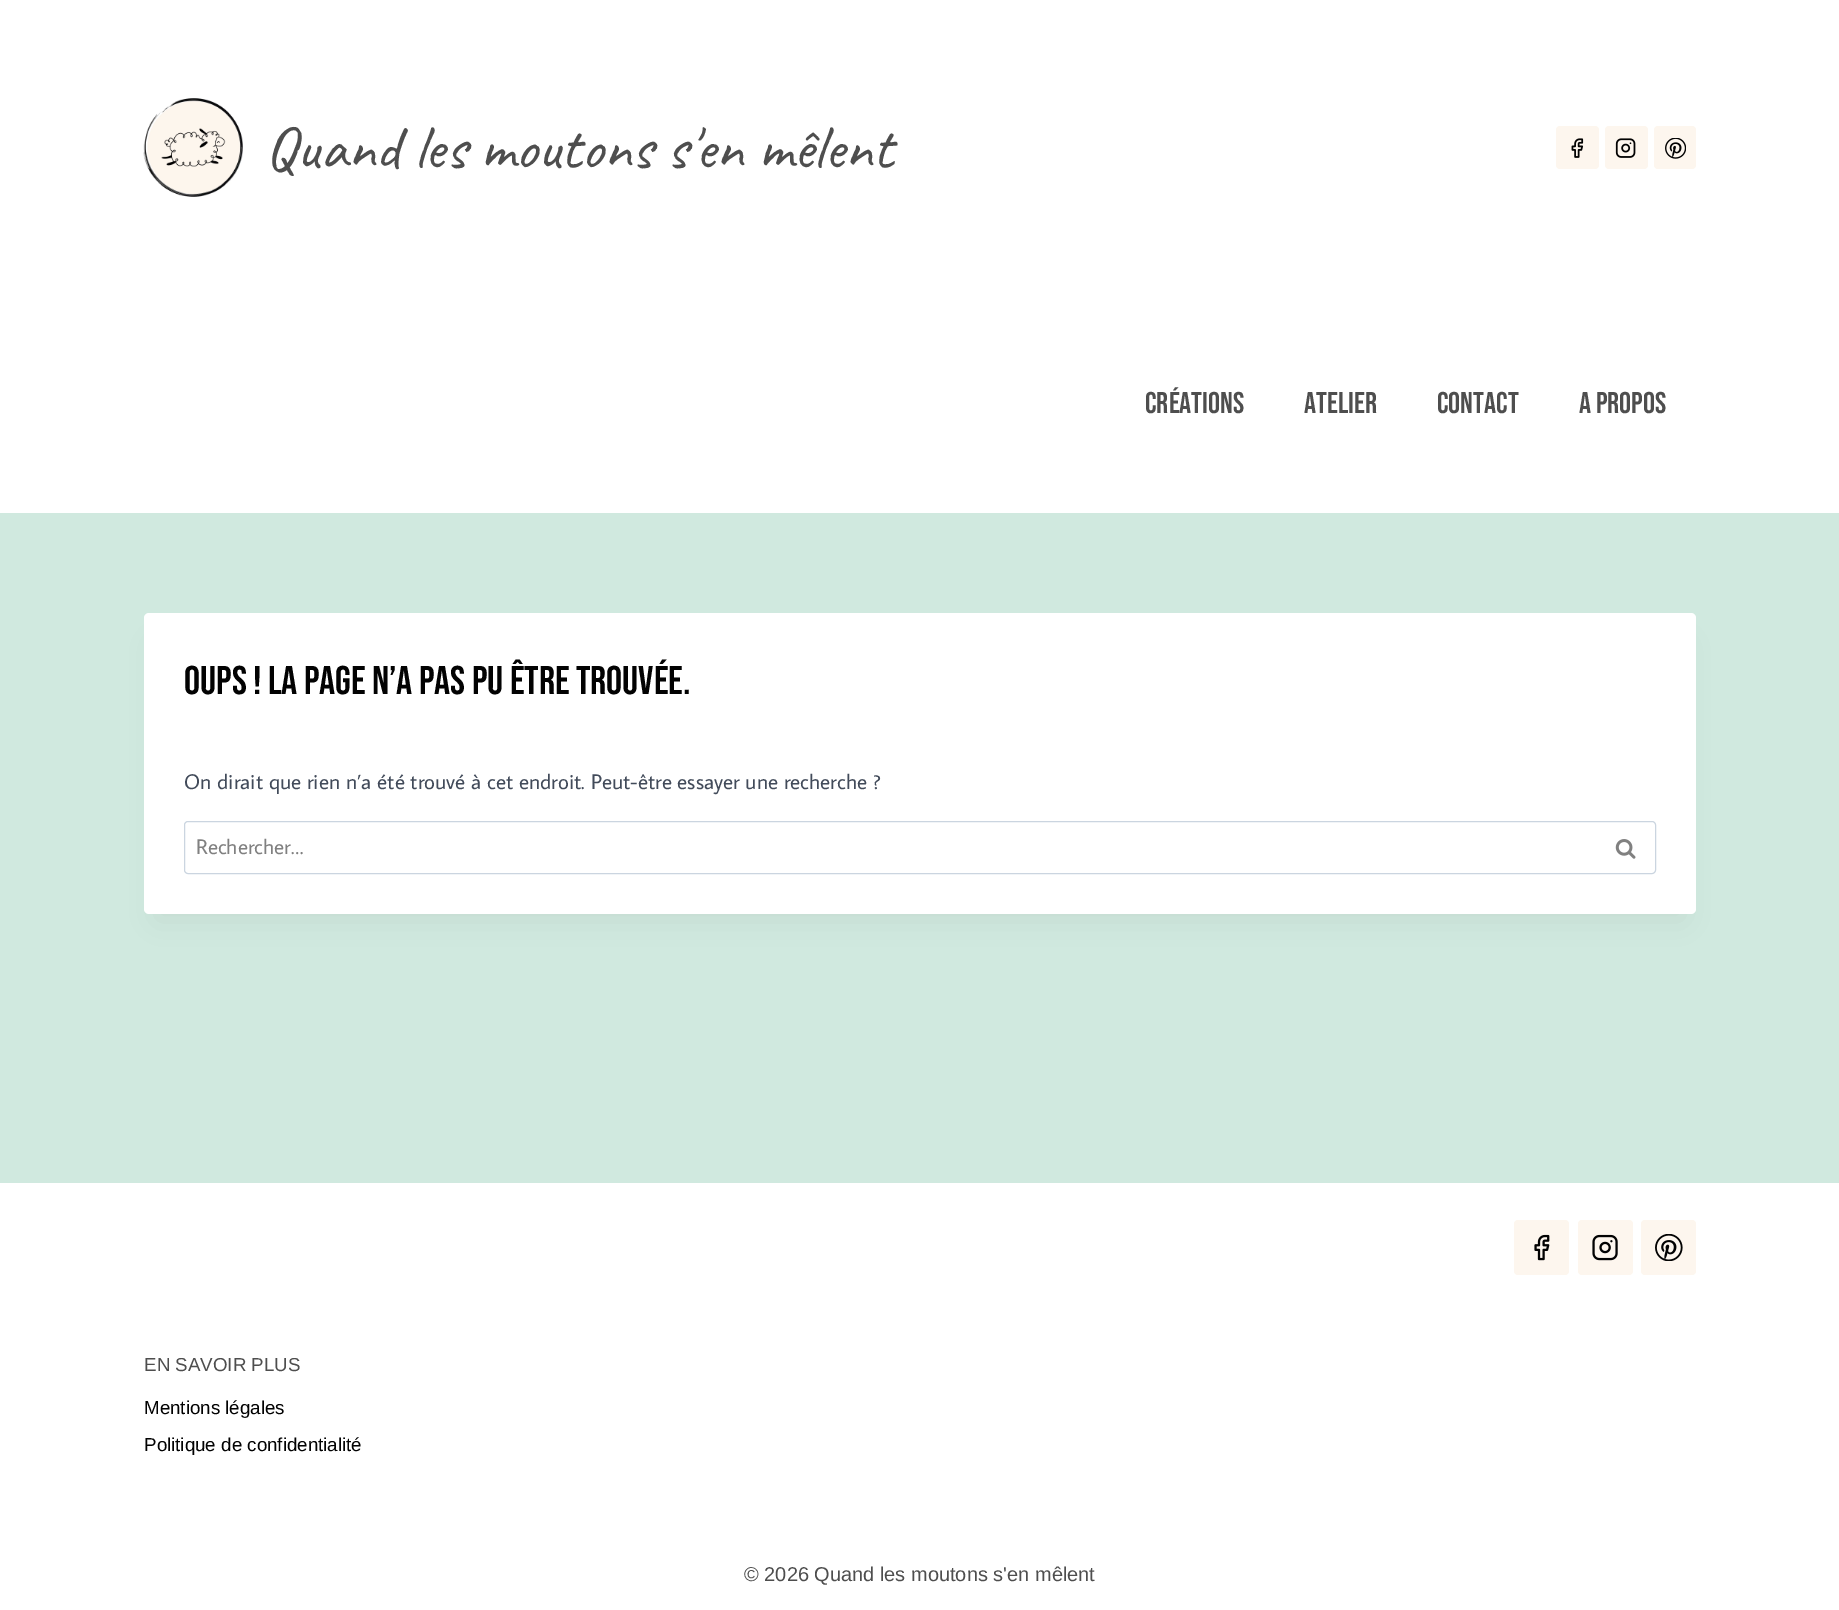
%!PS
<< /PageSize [1839 1610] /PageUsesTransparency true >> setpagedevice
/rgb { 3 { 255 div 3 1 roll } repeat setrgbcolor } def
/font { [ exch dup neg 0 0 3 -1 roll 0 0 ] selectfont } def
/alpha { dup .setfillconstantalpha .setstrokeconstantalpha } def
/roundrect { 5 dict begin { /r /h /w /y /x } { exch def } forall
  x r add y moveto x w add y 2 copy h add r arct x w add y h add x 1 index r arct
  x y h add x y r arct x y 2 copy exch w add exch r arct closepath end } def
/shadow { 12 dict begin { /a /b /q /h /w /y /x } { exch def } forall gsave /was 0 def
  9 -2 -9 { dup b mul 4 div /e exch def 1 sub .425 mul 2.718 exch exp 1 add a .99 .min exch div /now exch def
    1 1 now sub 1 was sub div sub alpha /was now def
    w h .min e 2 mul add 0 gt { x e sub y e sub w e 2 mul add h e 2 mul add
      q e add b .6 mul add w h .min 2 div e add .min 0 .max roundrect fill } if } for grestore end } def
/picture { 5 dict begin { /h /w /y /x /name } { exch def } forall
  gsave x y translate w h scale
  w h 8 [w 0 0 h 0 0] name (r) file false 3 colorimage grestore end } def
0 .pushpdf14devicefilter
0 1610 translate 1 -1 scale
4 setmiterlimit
208 233 223 rgb
0 0 1839 1610 rectfill
255 255 255 rgb
0 0 1839 513 rectfill
(img/1.rgb) 143 98 100 99 picture
253 246 238 rgb
1556 126 43 43 4 roundrect fill
(img/2.rgb) 1571 138 13 20 picture
1605 126 43 43 4 roundrect fill
(img/3.rgb) 1615 138 21 20 picture
1654 126 42 43 4 roundrect fill
(img/4.rgb) 1665 138 21 21 picture
0 0 0 rgb
156 644 1528 276 0 15.5 0.05 shadow
255 255 255 rgb
144 613 1552 301 5 roundrect fill
203 213 224 rgb
184.5 821.5 1471 52 3.5 roundrect stroke
(img/5.rgb) 1615 839 21 20 picture
255 255 255 rgb
0 1183 1839 427 rectfill
253 246 238 rgb
1514 1220 55 55 4 roundrect fill
(img/6.rgb) 1534 1234 16 27 picture
1578 1220 55 55 4 roundrect fill
(img/7.rgb) 1592 1234 26 27 picture
1641 1220 55 55 4 roundrect fill
(img/8.rgb) 1655 1234 28 27 picture
/Caveat-Regular 62.5 font
78 78 78 rgb
265 168 moveto -1 0 32 (Quand les moutons s'en mêlent) widthshow
/BebasNeue-Regular 30 font
[
  [(Créations) 1145 413]
  [(Atelier) 1304 413]
  [(Contact) 1437 413]
  [(A propos) 1579 413]
] { aload pop moveto show } forall
/BebasNeue-Regular 40 font
2 2 2 rgb
184 694 moveto (Oups ! La page n’a pas pu être trouvée.) show
/AverageSans-Regular 21.25 font
66 75 90 rgb
184 789 moveto (On dirait que rien n’a été trouvé à cet endroit. Peut-être essayer une recherche ?) show
128 128 128 rgb
196 854 moveto (Rechercher…) show
/LiberationSans-Regular 18.75 font
78 78 78 rgb
144 1371 moveto (EN SAVOIR PLUS) show
2 2 2 rgb
144 1414 moveto (Mentions légales) show
144 1451 moveto (Politique de confidentialité) show
/LiberationSans-Regular 20 font
78 78 78 rgb
744 1581 moveto (© 2026 Quand les moutons s'en mêlent) show
.poppdf14devicefilter showpage
